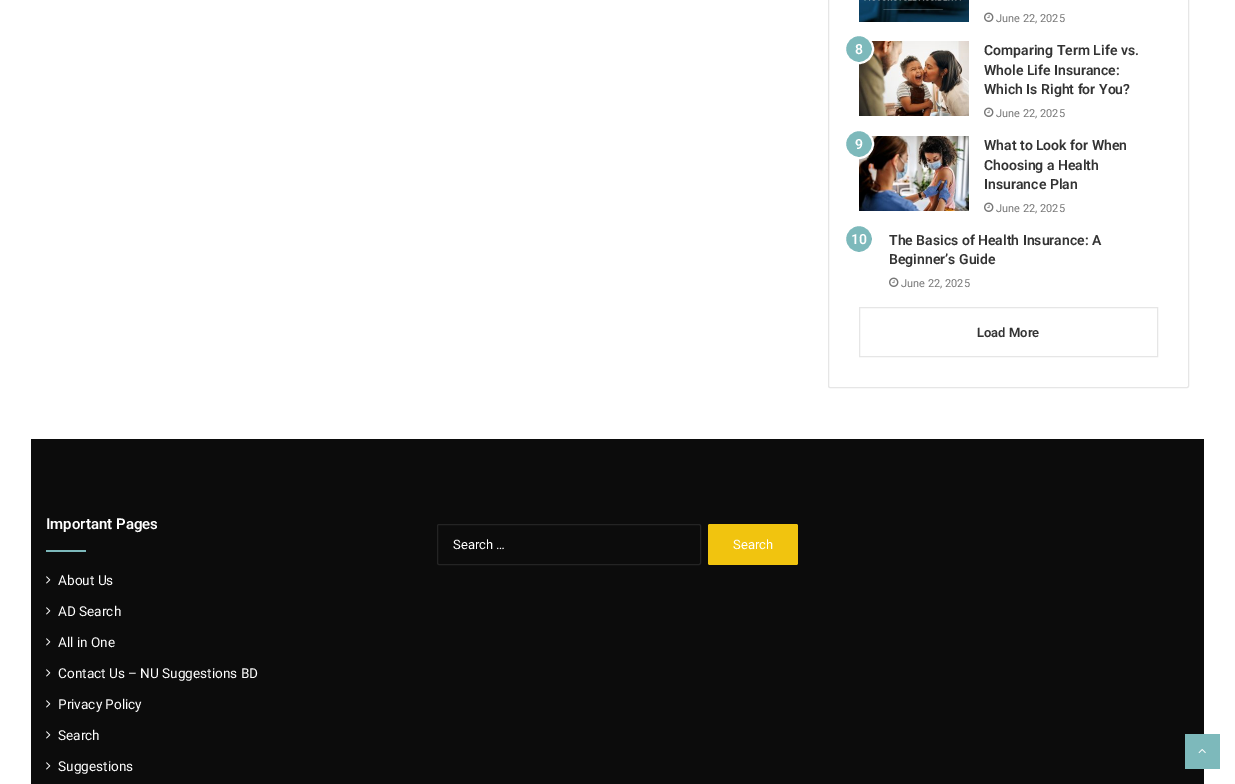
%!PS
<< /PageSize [1235 784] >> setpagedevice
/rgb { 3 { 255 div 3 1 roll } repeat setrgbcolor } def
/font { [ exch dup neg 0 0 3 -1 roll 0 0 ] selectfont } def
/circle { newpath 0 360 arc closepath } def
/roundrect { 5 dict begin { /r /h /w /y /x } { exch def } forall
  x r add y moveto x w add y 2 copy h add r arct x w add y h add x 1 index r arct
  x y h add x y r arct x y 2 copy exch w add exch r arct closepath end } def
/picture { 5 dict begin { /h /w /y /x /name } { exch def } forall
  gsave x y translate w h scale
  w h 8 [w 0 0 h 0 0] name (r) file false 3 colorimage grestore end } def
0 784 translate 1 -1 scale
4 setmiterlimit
255 255 255 rgb
0 0 1235 784 rectfill
230 230 230 rgb
828.5 -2.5 360 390 1.5 roundrect stroke
(img/1.rgb) 859 0 110 22 picture
(img/2.rgb) 984 12 10 10 picture
(img/3.rgb) 859 41 110 75 picture
125 185 187 rgb
859 49 14 circle gsave fill grestore
255 255 255 rgb
2 setlinewidth
stroke
(img/2.rgb) 984 107 10 10 picture
(img/4.rgb) 859 136 110 75 picture
125 185 187 rgb
859 144 14 circle gsave fill grestore
255 255 255 rgb
stroke
(img/2.rgb) 984 202 10 10 picture
125 185 187 rgb
859 239 14 circle gsave fill grestore
255 255 255 rgb
stroke
(img/2.rgb) 889 277 10 10 picture
230 230 230 rgb
1 setlinewidth
859.5 307.5 298 49 rectstroke
12 12 12 rgb
31 439 1173 345 rectfill
125 185 187 rgb
46 550 40 2 rectfill
(img/5.rgb) 46 576 5 8 picture
(img/5.rgb) 46 607 5 8 picture
(img/5.rgb) 46 638 5 8 picture
(img/5.rgb) 46 669 5 8 picture
(img/5.rgb) 46 700 5 8 picture
(img/5.rgb) 46 731 5 8 picture
(img/5.rgb) 46 762 5 8 picture
36 36 36 rgb
437.5 524.5 263 40 1.5 roundrect stroke
241 196 15 rgb
708 524 90 41 2 roundrect fill
125 185 187 rgb
1185 734 35 35 rectfill
(img/6.rgb) 1198 749 8 5 picture
/Roboto-Regular 11 font
118 118 118 rgb
996 22 moveto (June 22, 2025) show
/Roboto-SemiBold 14 font
255 255 255 rgb
855 54 moveto (8) show
51 51 51 rgb
[
  [(Comparing Term Life vs.) 984 55]
  [(Whole Life Insurance:) 984 75]
  [(Which Is Right for You?) 984 94]
] { aload pop moveto show } forall
/Roboto-Regular 11 font
118 118 118 rgb
996 117 moveto (June 22, 2025) show
/Roboto-SemiBold 14 font
255 255 255 rgb
855 149 moveto (9) show
51 51 51 rgb
[
  [(What to Look for When) 984 150]
  [(Choosing a Health) 984 170]
  [(Insurance Plan) 984 189]
] { aload pop moveto show } forall
/Roboto-Regular 11 font
118 118 118 rgb
996 212 moveto (June 22, 2025) show
/Roboto-SemiBold 14 font
255 255 255 rgb
851 244 moveto (10) show
51 51 51 rgb
889 245 moveto (The Basics of Health Insurance: A) show
889 264 moveto (Beginner’s Guide) show
/Roboto-Regular 11 font
118 118 118 rgb
901 287 moveto (June 22, 2025) show
/Roboto-SemiBold 13 font
51 51 51 rgb
977 337 moveto (Load More) show
/Roboto-SemiBold 15 font
255 255 255 rgb
46 529 moveto (Important Pages) show
/Roboto-Regular 13.6 font
[
  [(About Us) 58 585]
  [(AD Search) 58 616]
  [(All in One) 58 647]
  [(Contact Us – NU Suggestions BD) 58 678]
  [(Privacy Policy) 58 709]
  [(Search) 58 740]
  [(Suggestions) 58 771]
] { aload pop moveto show } forall
/Roboto-Regular 13 font
453 549 moveto (Search …) show
733 549 moveto (Search) show
showpage
